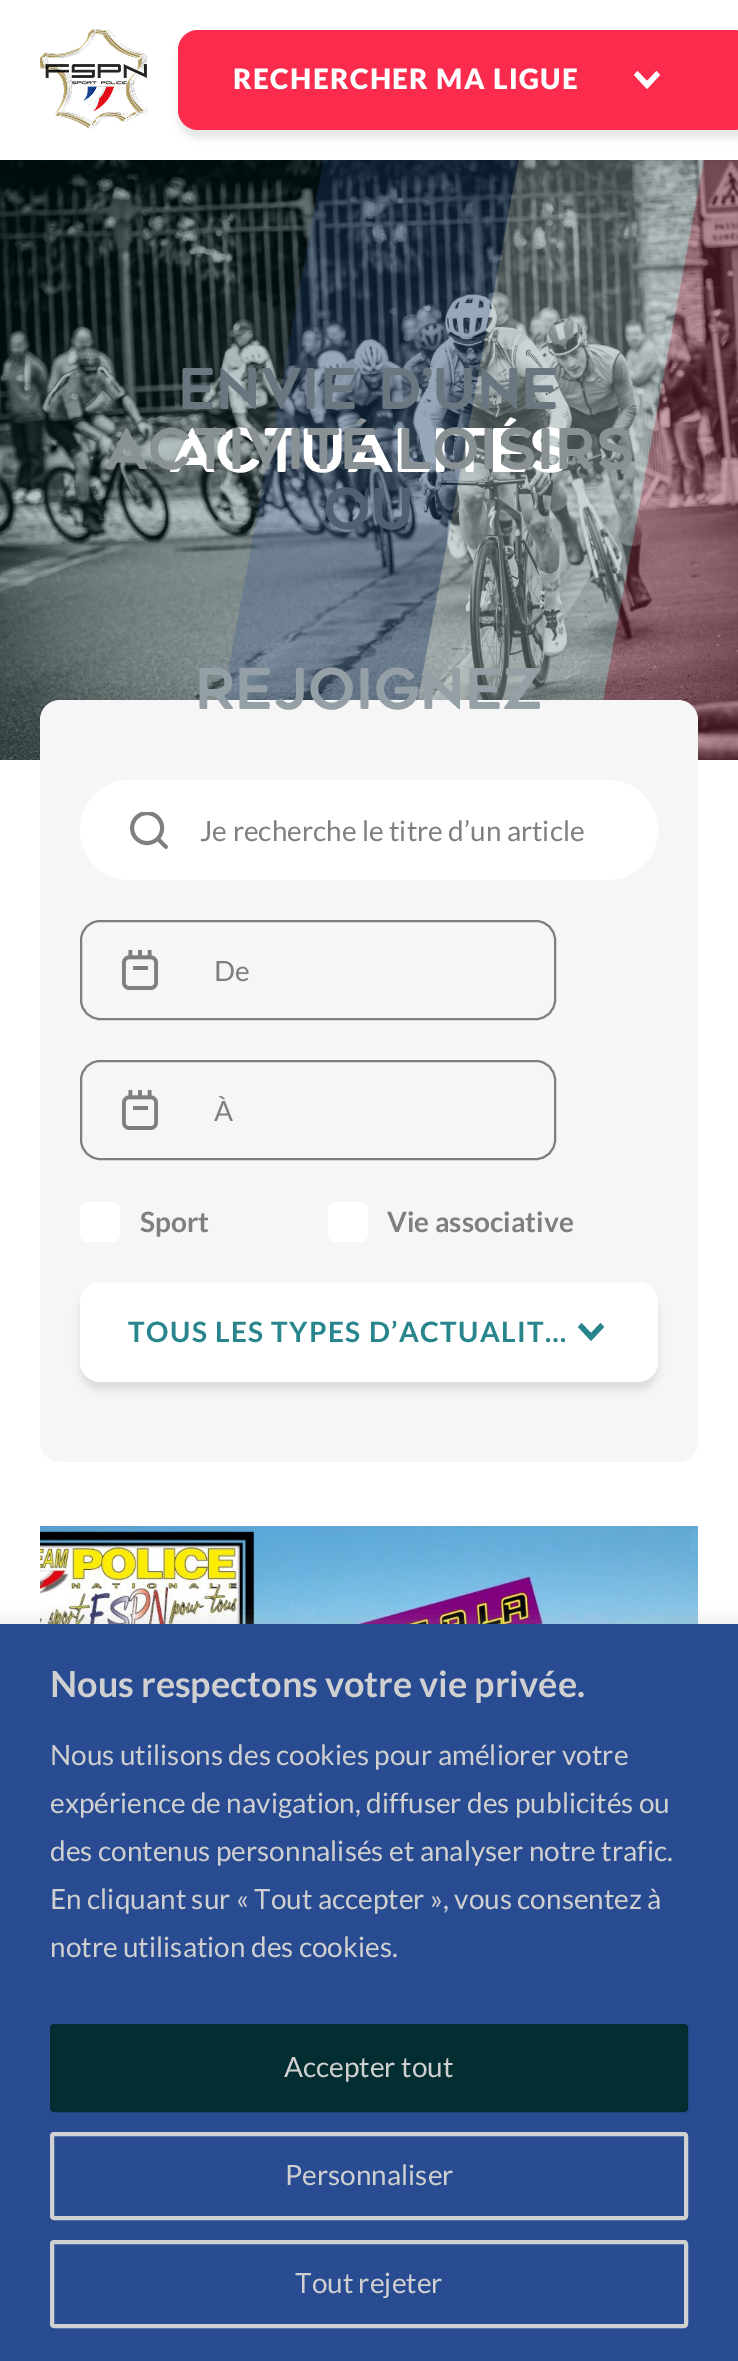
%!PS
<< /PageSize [738 2361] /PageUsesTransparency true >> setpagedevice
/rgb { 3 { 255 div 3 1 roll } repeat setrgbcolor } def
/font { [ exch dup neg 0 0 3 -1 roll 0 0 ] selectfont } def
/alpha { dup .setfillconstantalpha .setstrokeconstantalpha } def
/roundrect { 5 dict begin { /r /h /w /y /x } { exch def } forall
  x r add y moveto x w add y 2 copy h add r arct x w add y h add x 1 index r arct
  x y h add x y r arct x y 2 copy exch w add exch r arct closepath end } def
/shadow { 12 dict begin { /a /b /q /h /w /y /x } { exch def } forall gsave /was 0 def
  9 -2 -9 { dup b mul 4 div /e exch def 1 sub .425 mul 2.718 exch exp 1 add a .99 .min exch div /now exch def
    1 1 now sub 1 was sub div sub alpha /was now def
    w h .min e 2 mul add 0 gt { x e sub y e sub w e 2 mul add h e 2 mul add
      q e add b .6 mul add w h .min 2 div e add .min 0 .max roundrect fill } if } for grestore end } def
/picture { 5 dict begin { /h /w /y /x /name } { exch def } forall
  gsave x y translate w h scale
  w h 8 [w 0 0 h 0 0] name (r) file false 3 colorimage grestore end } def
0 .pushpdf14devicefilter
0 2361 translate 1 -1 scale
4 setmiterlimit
255 255 255 rgb
0 0 738 2361 rectfill
(img/1.rgb) 40 29 108 100 picture
0 0 0 rgb
178 38 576 100 20 4 0.1 shadow
251 43 78 rgb
178 30 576 100 20 roundrect fill
255 255 255 rgb
660 75 moveto 656.5 71 lineto 647 81 lineto 637.5 71 lineto 634 75 lineto 647 89 lineto closepath fill
(img/2.rgb) 0 160 738 600 picture
(img/3.rgb) 222 160 516 600 picture
246 246 246 rgb
40 700 658 762 20 roundrect fill
255 255 255 rgb
80 780 578 100 50 roundrect fill
(img/4.rgb) 130 812 38 37 picture
127 127 127 rgb
2 setlinewidth
81 921 474 98 19 roundrect stroke
(img/5.rgb) 122 950 36 40 picture
81 1061 474 98 19 roundrect stroke
(img/5.rgb) 122 1090 36 40 picture
255 255 255 rgb
80 1202 40 40 8 roundrect fill
328 1202 40 40 8 roundrect fill
0 0 0 rgb
80 1290 578 100 20 4 0.1 shadow
255 255 255 rgb
80 1282 578 100 20 roundrect fill
39 133 139 rgb
604 1327 moveto 600.5 1323 lineto 591 1333 lineto 581.5 1323 lineto 578 1327 lineto 591 1341 lineto closepath fill
(img/6.rgb) 40 1526 658 98 picture
172 171 171 rgb
0 1622 738 738 0 10 0.3 shadow
40 75 146 rgb
0 1624 738 737 rectfill
3 46 49 rgb
52 2026 634 84 2 roundrect gsave fill grestore
4 setlinewidth
stroke
208 208 208 rgb
52 2134 634 84 2 roundrect stroke
52 2242 634 84 2 roundrect stroke
/Lato-Black 28 font
255 255 255 rgb
233 89 moveto 1.4 0 (RECHERCHER MA LIGUE) ashow
/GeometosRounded-Regular 56 font
106 119 128 rgb
178 409 moveto (ENVIE D’UNE) show
80 97 114 rgb
323 529 moveto (OU) show
149 159 166 rgb
195 709 moveto (REJOIGNEZ) show
/GeometosRounded-Regular 60 font
255 255 255 rgb
169 472 moveto (actualités) show
/GeometosRounded-Regular 56 font
137 145 149 rgb
105 469 moveto (ACTIVITÉ LOISIRS) show
/Lato-Regular 28 font
127 127 127 rgb
[
  [(Je recherche le titre d’un article) 200 841]
  [(De) 214 981]
  [(À) 214 1121]
] { aload pop moveto show } forall
/Lato-Bold 28 font
140 1232 moveto (Sport) show
387 1232 moveto (Vie associative) show
39 133 139 rgb
128 1342 moveto 1.4 0 (TOUS LES TYPES D’ACTUALIT…) ashow
/Lato-Bold 36 font
208 208 208 rgb
50 1697 moveto (Nous respectons votre vie privée.) show
/Lato-Regular 28 font
[
  [(Nous utilisons des cookies pour améliorer votre) 50 1765]
  [(expérience de navigation, diffuser des publicités ou) 50 1813]
  [(des contenus personnalisés et analyser notre trafic.) 50 1861]
  [(En cliquant sur « Tout accepter », vous consentez à) 50 1909]
  [(notre utilisation des cookies.) 50 1957]
  [(Accepter tout) 284 2077]
  [(Personnaliser) 285 2185]
  [(Tout rejeter) 295 2293]
] { aload pop moveto show } forall
.poppdf14devicefilter showpage
